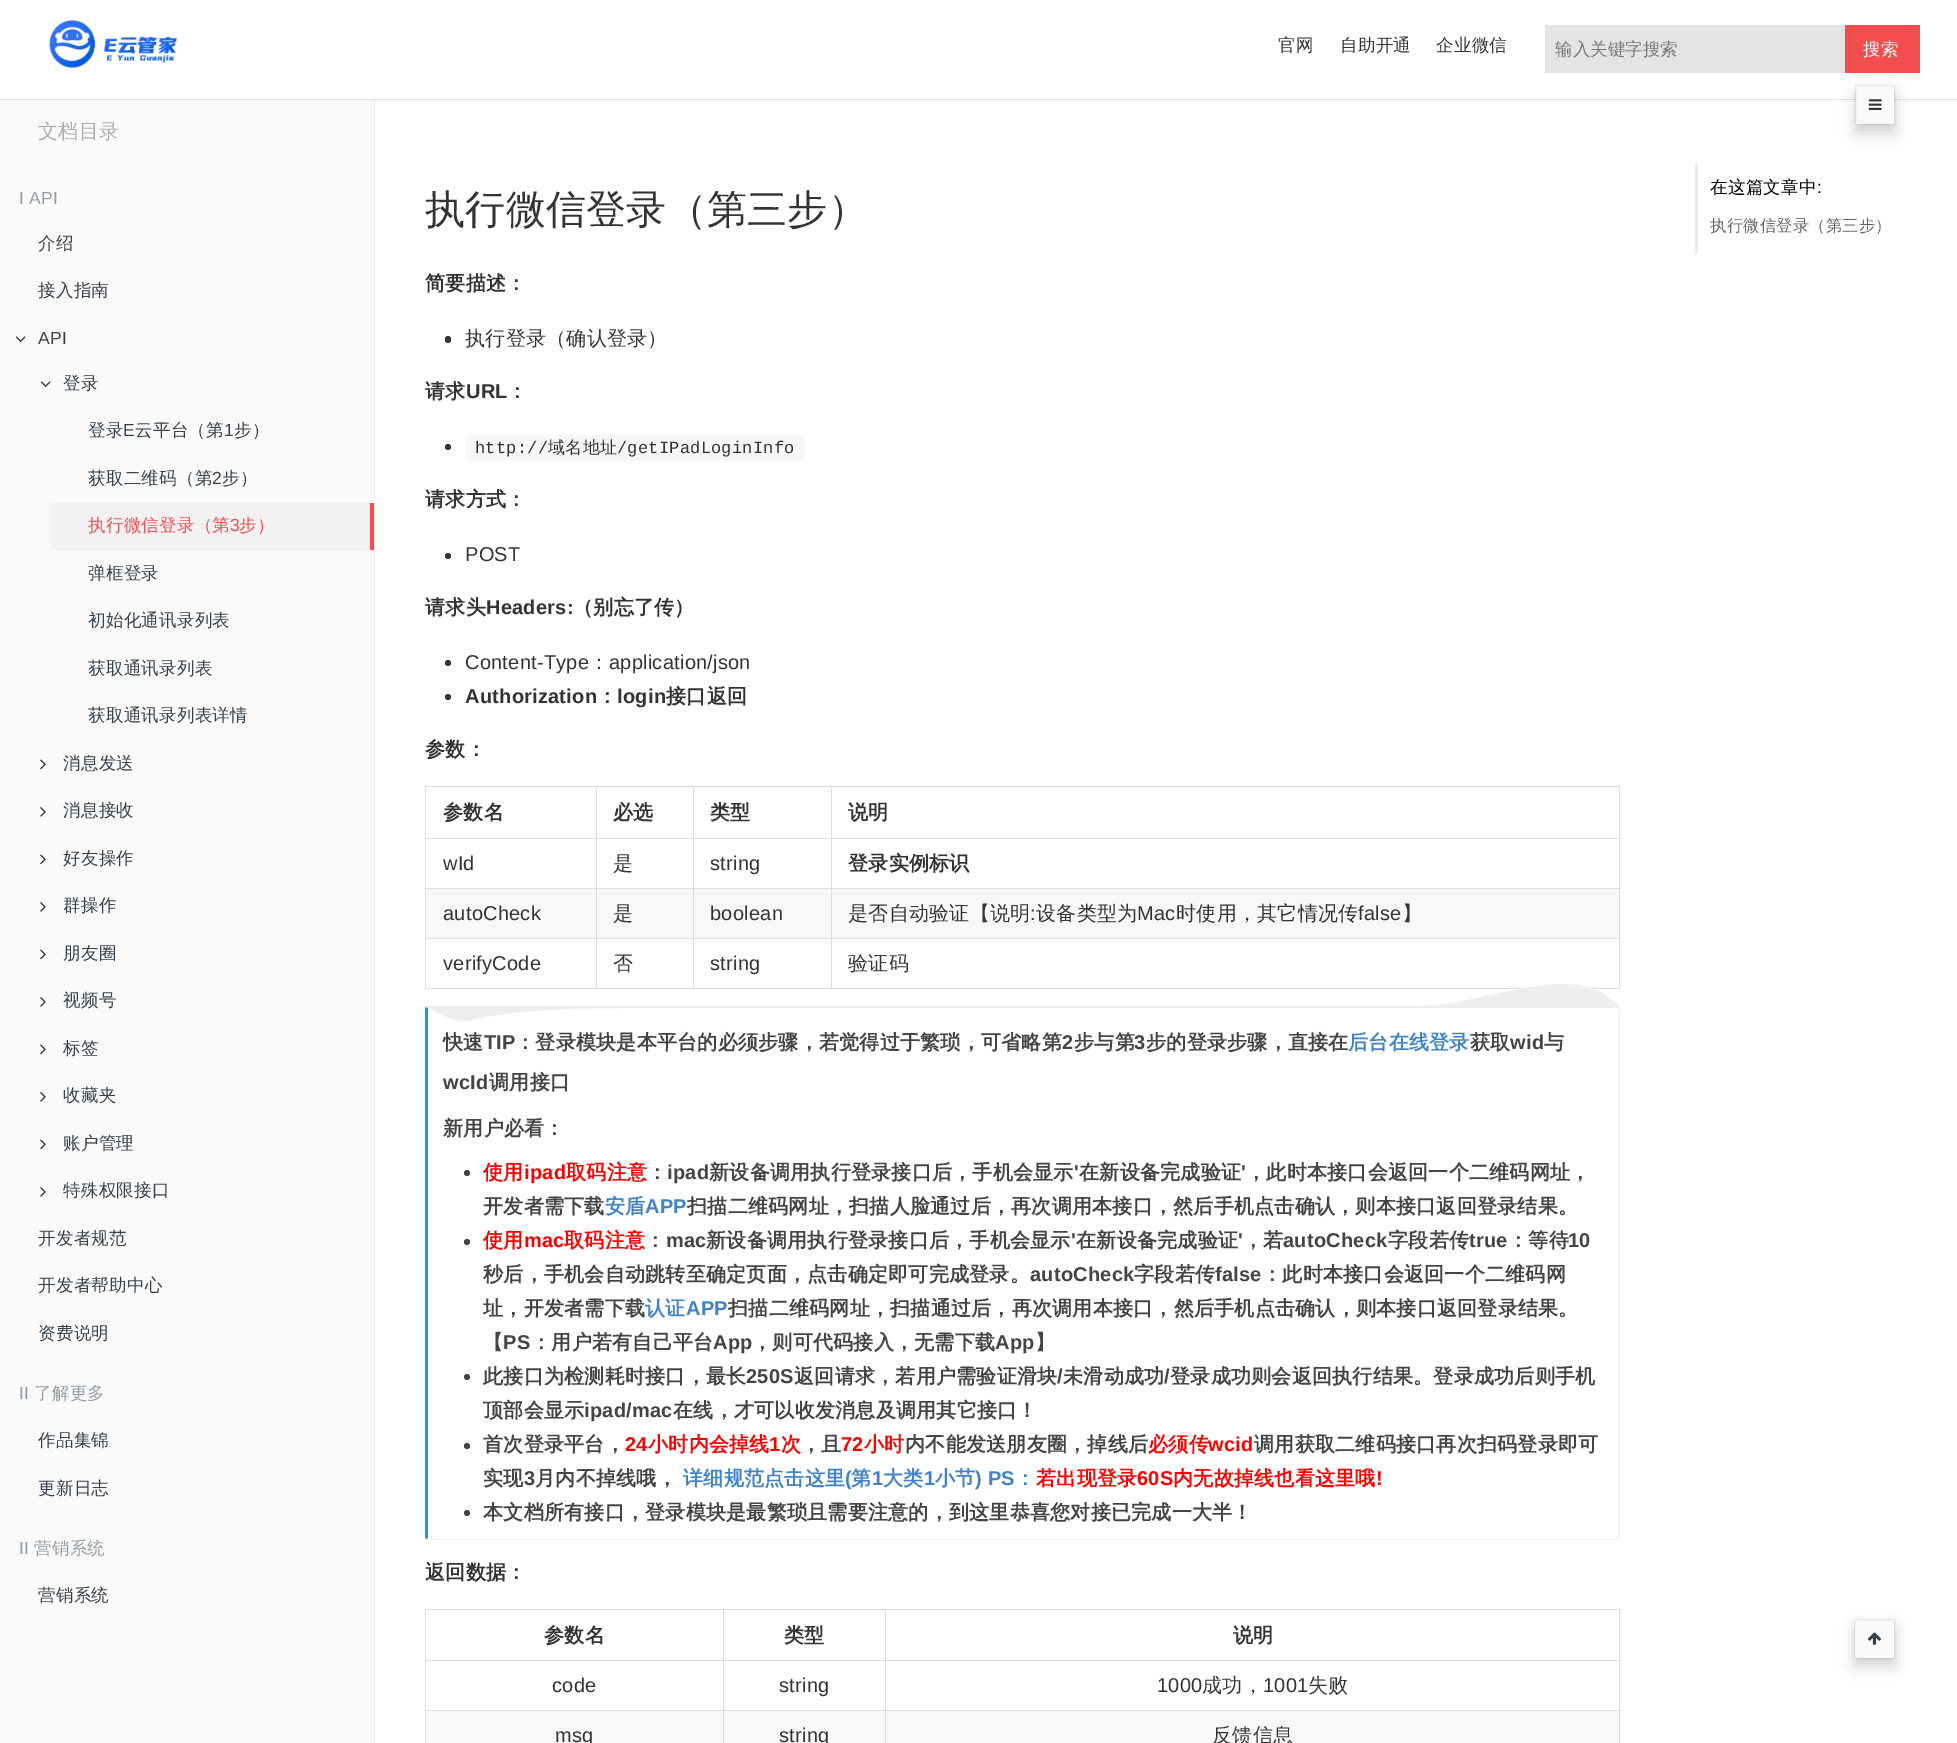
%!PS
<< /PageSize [1957 1743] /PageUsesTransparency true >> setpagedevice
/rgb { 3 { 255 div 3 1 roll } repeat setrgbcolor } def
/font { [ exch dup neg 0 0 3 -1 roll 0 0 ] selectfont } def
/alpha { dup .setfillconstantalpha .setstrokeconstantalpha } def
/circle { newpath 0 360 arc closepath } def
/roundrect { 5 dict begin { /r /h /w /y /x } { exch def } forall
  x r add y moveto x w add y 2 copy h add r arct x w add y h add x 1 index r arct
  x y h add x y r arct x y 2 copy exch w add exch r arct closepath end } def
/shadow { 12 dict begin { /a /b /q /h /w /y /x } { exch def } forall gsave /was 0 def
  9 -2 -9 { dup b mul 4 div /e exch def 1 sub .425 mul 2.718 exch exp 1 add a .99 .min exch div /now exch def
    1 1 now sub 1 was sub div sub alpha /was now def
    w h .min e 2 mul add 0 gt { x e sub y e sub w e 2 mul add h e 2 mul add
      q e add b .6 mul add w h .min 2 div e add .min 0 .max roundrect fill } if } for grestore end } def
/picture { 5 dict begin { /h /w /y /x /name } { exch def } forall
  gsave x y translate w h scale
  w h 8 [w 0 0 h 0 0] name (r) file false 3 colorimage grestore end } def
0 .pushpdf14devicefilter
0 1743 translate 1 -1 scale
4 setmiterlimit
255 255 255 rgb
0 0 1957 1743 rectfill
226 226 226 rgb
0 99 1957 1 rectfill
(img/1.rgb) 49 20 128 48 picture
[
  [1845 25 75 48 243 77 77]
  [1545 25 300 48 228 228 228]
  [0 100 374 1643 250 250 250]
  [374 100 1 1643 233 233 233]
] { aload pop rgb rectfill } forall
(img/2.rgb) 15 336 11 6 picture
(img/2.rgb) 40 381 11 6 picture
243 241 241 rgb
50 503 320 47 rectfill
243 77 77 rgb
370 503 4 47 rectfill
(img/3.rgb) 40 759 6 11 picture
(img/4.rgb) 40 807 6 10 picture
(img/3.rgb) 40 854 6 11 picture
(img/4.rgb) 40 902 6 10 picture
(img/3.rgb) 40 949 6 11 picture
(img/4.rgb) 40 997 6 10 picture
(img/3.rgb) 40 1044 6 11 picture
(img/4.rgb) 40 1092 6 10 picture
(img/3.rgb) 40 1139 6 11 picture
(img/4.rgb) 40 1187 6 10 picture
0 0 0 rgb
1855 93 40 40 1 7.5 0.18 shadow
250 250 250 rgb
1856 86 38 38 rectfill
0.07 alpha
0 0 0 rgb
1855.5 85.5 39 39 rectstroke
1 alpha
(img/5.rgb) 1868 99 14 11 picture
51 51 51 rgb
445 336 6 7 3 roundrect fill
448 447 3 circle fill
247 247 247 rgb
465 435 340 26 rectfill
51 51 51 rgb
448 556 3 circle fill
448 663 3 circle fill
448 697 3 circle fill
[
  [831 786 789 1 221 221 221]
  [831 838 789 1 221 221 221]
  [831 888 789 1 221 221 221]
  [426 889 1193 49 248 248 248]
  [831 938 789 1 221 221 221]
  [1619 938 1 51 221 221 221]
  [831 988 789 1 221 221 221]
  [831 938 1 51 221 221 221]
  [693 938 140 1 221 221 221]
  [831 888 1 51 221 221 221]
  [693 888 140 1 221 221 221]
  [831 838 1 51 221 221 221]
  [693 838 140 1 221 221 221]
  [831 786 1 53 221 221 221]
  [693 786 140 1 221 221 221]
  [693 988 140 1 221 221 221]
  [693 938 1 51 221 221 221]
  [596 938 98 1 221 221 221]
  [693 888 1 51 221 221 221]
  [596 888 98 1 221 221 221]
  [693 838 1 51 221 221 221]
  [596 838 98 1 221 221 221]
  [693 786 1 53 221 221 221]
  [596 786 98 1 221 221 221]
  [596 988 98 1 221 221 221]
  [596 938 1 51 221 221 221]
  [425 938 173 1 221 221 221]
  [596 888 1 51 221 221 221]
  [425 888 173 1 221 221 221]
  [596 838 1 51 221 221 221]
  [425 838 173 1 221 221 221]
  [596 786 1 53 221 221 221]
  [425 786 173 1 221 221 221]
  [425 988 173 1 221 221 221]
  [425 938 1 51 221 221 221]
  [425 888 1 51 221 221 221]
  [425 838 1 51 221 221 221]
  [425 786 1 53 221 221 221]
  [1619 888 1 51 221 221 221]
  [1619 838 1 51 221 221 221]
  [1619 786 1 53 221 221 221]
] { aload pop rgb rectfill } forall
238 238 238 rgb
426 1007 moveto 427 1006 lineto 1420 1006 lineto 1486 1006 1576 956 1619 1007 curveto 1618 1008 lineto 627 1008 lineto 428 1008 488 1038 426 1007 curveto closepath fill
1620 1537 moveto 1620 1009 lineto 1619 1007 lineto 1618 1008 lineto 1619 1009 lineto 1619 1537 lineto 1618 1538 lineto 1619 1539 lineto closepath fill
428 1540 moveto 1617 1540 lineto 1619 1539 lineto 1618 1538 lineto 1617 1539 lineto 428 1539 lineto 428 1538 lineto 426 1539 lineto closepath fill
23 162 184 rgb
428 1008 moveto 426 1007 lineto 425 1009 lineto 425 1537 lineto 426 1539 lineto 428 1538 lineto closepath fill
68 68 68 rgb
467 1173 3 circle fill
467 1242 3 circle fill
467 1377 3 circle fill
467 1446 3 circle fill
467 1513 3 circle fill
[
  [885 1609 735 1 221 221 221]
  [885 1660 735 1 221 221 221]
  [885 1710 735 1 221 221 221]
  [426 1711 1193 32 248 248 248]
  [885 1710 1 33 221 221 221]
  [723 1710 163 1 221 221 221]
  [885 1660 1 51 221 221 221]
  [723 1660 163 1 221 221 221]
  [885 1609 1 52 221 221 221]
  [723 1609 163 1 221 221 221]
  [723 1710 1 33 221 221 221]
  [425 1710 299 1 221 221 221]
  [723 1660 1 51 221 221 221]
  [425 1660 299 1 221 221 221]
  [723 1609 1 52 221 221 221]
  [425 1609 299 1 221 221 221]
  [425 1710 1 33 221 221 221]
  [425 1660 1 51 221 221 221]
  [425 1609 1 52 221 221 221]
  [1619 1710 1 33 221 221 221]
  [1619 1660 1 51 221 221 221]
  [1619 1609 1 52 221 221 221]
] { aload pop rgb rectfill } forall
0 0 0 rgb
1854 1626 41 40 1 7.5 0.18 shadow
250 250 250 rgb
1855 1620 39 38 rectfill
0.07 alpha
0 0 0 rgb
1854.5 1619.5 40 39 rectstroke
1 alpha
(img/6.rgb) 1868 1632 13 13 picture
236 236 236 rgb
1695 163 3 91 rectfill
/WenQuanYiZenHei-Medium 17.5 font
51 51 51 rgb
1278 51 moveto 0.25 0 (官网) ashow
1340 51 moveto 0.25 0 (自助开通) ashow
1436 51 moveto 0.25 0 (企业微信) ashow
117 117 117 rgb
1555 55 moveto (输入关键字搜索) show
255 255 255 rgb
1863 55 moveto 0.25 0 (搜索) ashow
/WenQuanYiZenHei-Medium 20 font
173 173 173 rgb
38 138 moveto 0.25 0 (文档目录) ashow
/LiberationSans-Regular 17.5 font
147 157 163 rgb
19 204 moveto 0.25 0 (I API) ashow
/WenQuanYiZenHei-Medium 17.5 font
54 65 73 rgb
38 249 moveto 0.25 0 (介绍) ashow
38 296 moveto 0.25 0 (接入指南) ashow
/LiberationSans-Regular 17.5 font
38 344 moveto 0.25 0 (API) ashow
/WenQuanYiZenHei-Medium 17.5 font
63 389 moveto 0.25 0 (登录) ashow
88 436 moveto 0.25 0 (登录) ashow
/LiberationSans-Regular 17.5 font
123 436 moveto 0.25 0 (E) ashow
/WenQuanYiZenHei-Medium 17.5 font
135 436 moveto 0.25 0 (云平台（第) ashow
/LiberationSans-Regular 17.5 font
224 436 moveto 0.25 0 (1) ashow
/WenQuanYiZenHei-Medium 17.5 font
234 436 moveto 0.25 0 (步）) ashow
88 484 moveto 0.25 0 (获取二维码（第) ashow
/LiberationSans-Regular 17.5 font
212 484 moveto 0.25 0 (2) ashow
/WenQuanYiZenHei-Medium 17.5 font
222 484 moveto 0.25 0 (步）) ashow
243 77 77 rgb
88 531 moveto 0.25 0 (执行微信登录（第) ashow
/LiberationSans-Regular 17.5 font
230 531 moveto 0.25 0 (3) ashow
/WenQuanYiZenHei-Medium 17.5 font
239 531 moveto 0.25 0 (步）) ashow
54 65 73 rgb
88 579 moveto 0.25 0 (弹框登录) ashow
88 626 moveto 0.25 0 (初始化通讯录列表) ashow
88 674 moveto 0.25 0 (获取通讯录列表) ashow
88 721 moveto 0.25 0 (获取通讯录列表详情) ashow
63 769 moveto 0.25 0 (消息发送) ashow
63 816 moveto 0.25 0 (消息接收) ashow
63 864 moveto 0.25 0 (好友操作) ashow
63 911 moveto 0.25 0 (群操作) ashow
63 959 moveto 0.25 0 (朋友圈) ashow
63 1006 moveto 0.25 0 (视频号) ashow
63 1054 moveto 0.25 0 (标签) ashow
63 1101 moveto 0.25 0 (收藏夹) ashow
63 1149 moveto 0.25 0 (账户管理) ashow
63 1196 moveto 0.25 0 (特殊权限接口) ashow
38 1244 moveto 0.25 0 (开发者规范) ashow
38 1291 moveto 0.25 0 (开发者帮助中心) ashow
38 1339 moveto 0.25 0 (资费说明) ashow
/LiberationSans-Regular 17.5 font
147 157 163 rgb
19 1399 moveto 0.25 0 (II) ashow
/WenQuanYiZenHei-Medium 17.5 font
34 1399 moveto 0.25 0 (了解更多) ashow
54 65 73 rgb
38 1446 moveto 0.25 0 (作品集锦) ashow
38 1494 moveto 0.25 0 (更新日志) ashow
/LiberationSans-Regular 17.5 font
147 157 163 rgb
19 1554 moveto 0.25 0 (II) ashow
/WenQuanYiZenHei-Medium 17.5 font
34 1554 moveto 0.25 0 (营销系统) ashow
54 65 73 rgb
38 1601 moveto 0.25 0 (营销系统) ashow
/WenQuanYiZenHei-Medium 40 font
51 51 51 rgb
425 223 moveto 0.25 0 (执行微信登录（第三步）) ashow
/WenQuanYiZenHei-Bold 20 font
425 290 moveto 0.25 0 (简要描述：) ashow
/WenQuanYiZenHei-Medium 20 font
465 345 moveto 0.25 0 (执行登录（确认登录）) ashow
/WenQuanYiZenHei-Bold 20 font
425 398 moveto 0.25 0 (请求) ashow
/LiberationSans-Bold 20 font
466 398 moveto 0.25 0 (URL) ashow
/WenQuanYiZenHei-Bold 20 font
507 398 moveto 0.25 0 (：) ashow
/LiberationMono-Regular 17 font
475 453 moveto 0.25 0 (http://) ashow
/WenQuanYiZenHei-Medium 17 font
548 453 moveto 0.25 0 (域名地址) ashow
/LiberationMono-Regular 17 font
617 453 moveto 0.25 0 (/getIPadLoginInfo) ashow
/WenQuanYiZenHei-Bold 20 font
425 506 moveto 0.25 0 (请求方式：) ashow
/LiberationSans-Regular 20 font
465 561 moveto 0.25 0 (POST) ashow
/WenQuanYiZenHei-Bold 20 font
425 614 moveto 0.25 0 (请求头) ashow
/LiberationSans-Bold 20 font
486 614 moveto 0.25 0 (Headers:) ashow
/WenQuanYiZenHei-Bold 20 font
573 614 moveto 0.25 0 (（别忘了传）) ashow
/LiberationSans-Regular 20 font
465 669 moveto 0.25 0 (Content-Type) ashow
/WenQuanYiZenHei-Medium 20 font
589 669 moveto 0.25 0 (：) ashow
/LiberationSans-Regular 20 font
609 669 moveto 0.25 0 (application/json) ashow
/LiberationSans-Bold 20 font
465 703 moveto 0.25 0 (Authorization) ashow
/WenQuanYiZenHei-Bold 20 font
597 703 moveto 0.25 0 (：) ashow
/LiberationSans-Bold 20 font
617 703 moveto 0.25 0 (login) ashow
/WenQuanYiZenHei-Bold 20 font
666 703 moveto 0.25 0 (接口返回) ashow
425 756 moveto 0.25 0 (参数：) ashow
443 819 moveto 0.25 0 (参数名) ashow
613 819 moveto 0.25 0 (必选) ashow
710 819 moveto 0.25 0 (类型) ashow
848 819 moveto 0.25 0 (说明) ashow
/LiberationSans-Regular 20 font
443 870 moveto 0.25 0 (wId) ashow
/WenQuanYiZenHei-Medium 20 font
613 870 moveto 0.25 0 (是) ashow
/LiberationSans-Regular 20 font
710 870 moveto 0.25 0 (string) ashow
/WenQuanYiZenHei-Bold 20 font
848 870 moveto 0.25 0 (登录实例标识) ashow
/LiberationSans-Regular 20 font
443 920 moveto 0.25 0 (autoCheck) ashow
/WenQuanYiZenHei-Medium 20 font
613 920 moveto 0.25 0 (是) ashow
/LiberationSans-Regular 20 font
710 920 moveto 0.25 0 (boolean) ashow
/WenQuanYiZenHei-Medium 20 font
848 920 moveto 0.25 0 (是否自动验证【说明) ashow
/LiberationSans-Regular 20 font
1030 920 moveto 0.25 0 (:) ashow
/WenQuanYiZenHei-Medium 20 font
1036 920 moveto 0.25 0 (设备类型为) ashow
/LiberationSans-Regular 20 font
1137 920 moveto 0.25 0 (Mac) ashow
/WenQuanYiZenHei-Medium 20 font
1176 920 moveto 0.25 0 (时使用，其它情况传) ashow
/LiberationSans-Regular 20 font
1358 920 moveto 0.25 0 (false) ashow
/WenQuanYiZenHei-Medium 20 font
1402 920 moveto 0.25 0 (】) ashow
/LiberationSans-Regular 20 font
443 970 moveto 0.25 0 (verifyCode) ashow
/WenQuanYiZenHei-Medium 20 font
613 970 moveto 0.25 0 (否) ashow
/LiberationSans-Regular 20 font
710 970 moveto 0.25 0 (string) ashow
/WenQuanYiZenHei-Medium 20 font
848 970 moveto 0.25 0 (验证码) ashow
/WenQuanYiZenHei-Bold 20 font
68 68 68 rgb
443 1049 moveto 0.25 0 (快速) ashow
/LiberationSans-Bold 20 font
484 1049 moveto 0.25 0 (TIP) ashow
/WenQuanYiZenHei-Bold 20 font
515 1049 moveto 0.25 0 (：登录模块是本平台的必须步骤，若觉得过于繁琐，可省略第) ashow
/LiberationSans-Bold 20 font
1062 1049 moveto 0.25 0 (2) ashow
/WenQuanYiZenHei-Bold 20 font
1074 1049 moveto 0.25 0 (步与第) ashow
/LiberationSans-Bold 20 font
1134 1049 moveto 0.25 0 (3) ashow
/WenQuanYiZenHei-Bold 20 font
1146 1049 moveto 0.25 0 (步的登录步骤，直接在) ashow
65 131 196 rgb
1348 1049 moveto 0.25 0 (后台在线登录) ashow
68 68 68 rgb
1470 1049 moveto 0.25 0 (获取) ashow
/LiberationSans-Bold 20 font
1510 1049 moveto 0.25 0 (wid) ashow
/WenQuanYiZenHei-Bold 20 font
1544 1049 moveto 0.25 0 (与) ashow
/LiberationSans-Bold 20 font
443 1089 moveto 0.25 0 (wcId) ashow
/WenQuanYiZenHei-Bold 20 font
489 1089 moveto 0.25 0 (调用接口) ashow
443 1135 moveto 0.25 0 (新用户必看：) ashow
255 0 0 rgb
483 1179 moveto 0.25 0 (使用) ashow
/LiberationSans-Bold 20 font
524 1179 moveto 0.25 0 (ipad) ashow
/WenQuanYiZenHei-Bold 20 font
566 1179 moveto 0.25 0 (取码注意) ashow
68 68 68 rgb
647 1179 moveto 0.25 0 (：) ashow
/LiberationSans-Bold 20 font
667 1179 moveto 0.25 0 (ipad) ashow
/WenQuanYiZenHei-Bold 20 font
709 1179 moveto 0.25 0 (新设备调用执行登录接口后，手机会显示) ashow
/LiberationSans-Bold 20 font
1074 1179 moveto 0.25 0 (') ashow
/WenQuanYiZenHei-Bold 20 font
1079 1179 moveto 0.25 0 (在新设备完成验证) ashow
/LiberationSans-Bold 20 font
1241 1179 moveto 0.25 0 (') ashow
/WenQuanYiZenHei-Bold 20 font
1246 1179 moveto 0.25 0 (，此时本接口会返回一个二维码网址，) ashow
483 1213 moveto 0.25 0 (开发者需下载) ashow
65 131 196 rgb
605 1213 moveto 0.25 0 (安盾) ashow
/LiberationSans-Bold 20 font
645 1213 moveto 0.25 0 (APP) ashow
/WenQuanYiZenHei-Bold 20 font
68 68 68 rgb
687 1213 moveto 0.25 0 (扫描二维码网址，扫描人脸通过后，再次调用本接口，然后手机点击确认，则本接口返回登录结果。) ashow
255 0 0 rgb
483 1247 moveto 0.25 0 (使用) ashow
/LiberationSans-Bold 20 font
524 1247 moveto 0.25 0 (mac) ashow
/WenQuanYiZenHei-Bold 20 font
564 1247 moveto 0.25 0 (取码注意) ashow
68 68 68 rgb
645 1247 moveto 0.25 0 (：) ashow
/LiberationSans-Bold 20 font
666 1247 moveto 0.25 0 (mac) ashow
/WenQuanYiZenHei-Bold 20 font
706 1247 moveto 0.25 0 (新设备调用执行登录接口后，手机会显示) ashow
/LiberationSans-Bold 20 font
1071 1247 moveto 0.25 0 (') ashow
/WenQuanYiZenHei-Bold 20 font
1076 1247 moveto 0.25 0 (在新设备完成验证) ashow
/LiberationSans-Bold 20 font
1238 1247 moveto 0.25 0 (') ashow
/WenQuanYiZenHei-Bold 20 font
1243 1247 moveto 0.25 0 (，若) ashow
/LiberationSans-Bold 20 font
1283 1247 moveto 0.25 0 (autoCheck) ashow
/WenQuanYiZenHei-Bold 20 font
1388 1247 moveto 0.25 0 (字段若传) ashow
/LiberationSans-Bold 20 font
1469 1247 moveto 0.25 0 (true) ashow
/WenQuanYiZenHei-Bold 20 font
1508 1247 moveto 0.25 0 (：等待) ashow
/LiberationSans-Bold 20 font
1568 1247 moveto 0.25 0 (10) ashow
/WenQuanYiZenHei-Bold 20 font
483 1281 moveto 0.25 0 (秒后，手机会自动跳转至确定页面，点击确定即可完成登录。) ashow
/LiberationSans-Bold 20 font
1030 1281 moveto 0.25 0 (autoCheck) ashow
/WenQuanYiZenHei-Bold 20 font
1134 1281 moveto 0.25 0 (字段若传) ashow
/LiberationSans-Bold 20 font
1215 1281 moveto 0.25 0 (false) ashow
/WenQuanYiZenHei-Bold 20 font
1262 1281 moveto 0.25 0 (：此时本接口会返回一个二维码网) ashow
483 1315 moveto 0.25 0 (址，开发者需下载) ashow
65 131 196 rgb
645 1315 moveto 0.25 0 (认证) ashow
/LiberationSans-Bold 20 font
686 1315 moveto 0.25 0 (APP) ashow
/WenQuanYiZenHei-Bold 20 font
68 68 68 rgb
728 1315 moveto 0.25 0 (扫描二维码网址，扫描通过后，再次调用本接口，然后手机点击确认，则本接口返回登录结果。) ashow
483 1349 moveto 0.25 0 (【) ashow
/LiberationSans-Bold 20 font
503 1349 moveto 0.25 0 (PS) ashow
/WenQuanYiZenHei-Bold 20 font
531 1349 moveto 0.25 0 (：用户若有自己平台) ashow
/LiberationSans-Bold 20 font
713 1349 moveto 0.25 0 (App) ashow
/WenQuanYiZenHei-Bold 20 font
752 1349 moveto 0.25 0 (，则可代码接入，无需下载) ashow
/LiberationSans-Bold 20 font
995 1349 moveto 0.25 0 (App) ashow
/WenQuanYiZenHei-Bold 20 font
1035 1349 moveto 0.25 0 (】) ashow
483 1383 moveto 0.25 0 (此接口为检测耗时接口，最长) ashow
/LiberationSans-Bold 20 font
746 1383 moveto 0.25 0 (250S) ashow
/WenQuanYiZenHei-Bold 20 font
794 1383 moveto 0.25 0 (返回请求，若用户需验证滑块) ashow
/LiberationSans-Bold 20 font
1057 1383 moveto 0.25 0 (/) ashow
/WenQuanYiZenHei-Bold 20 font
1063 1383 moveto 0.25 0 (未滑动成功) ashow
/LiberationSans-Bold 20 font
1164 1383 moveto 0.25 0 (/) ashow
/WenQuanYiZenHei-Bold 20 font
1170 1383 moveto 0.25 0 (登录成功则会返回执行结果。登录成功后则手机) ashow
483 1417 moveto 0.25 0 (顶部会显示) ashow
/LiberationSans-Bold 20 font
584 1417 moveto 0.25 0 (ipad/mac) ashow
/WenQuanYiZenHei-Bold 20 font
673 1417 moveto 0.25 0 (在线，才可以收发消息及调用其它接口！) ashow
483 1451 moveto 0.25 0 (首次登录平台，) ashow
/LiberationSans-Bold 20 font
255 0 0 rgb
625 1451 moveto 0.25 0 (24) ashow
/WenQuanYiZenHei-Bold 20 font
648 1451 moveto 0.25 0 (小时内会掉线) ashow
/LiberationSans-Bold 20 font
769 1451 moveto 0.25 0 (1) ashow
/WenQuanYiZenHei-Bold 20 font
781 1451 moveto 0.25 0 (次) ashow
68 68 68 rgb
801 1451 moveto 0.25 0 (，且) ashow
/LiberationSans-Bold 20 font
255 0 0 rgb
841 1451 moveto 0.25 0 (72) ashow
/WenQuanYiZenHei-Bold 20 font
864 1451 moveto 0.25 0 (小时) ashow
68 68 68 rgb
905 1451 moveto 0.25 0 (内不能发送朋友圈，掉线后) ashow
255 0 0 rgb
1148 1451 moveto 0.25 0 (必须传) ashow
/LiberationSans-Bold 20 font
1208 1451 moveto 0.25 0 (wcid) ashow
/WenQuanYiZenHei-Bold 20 font
68 68 68 rgb
1254 1451 moveto 0.25 0 (调用获取二维码接口再次扫码登录即可) ashow
483 1485 moveto 0.25 0 (实现) ashow
/LiberationSans-Bold 20 font
524 1485 moveto 0.25 0 (3) ashow
/WenQuanYiZenHei-Bold 20 font
535 1485 moveto 0.25 0 (月内不掉线哦，) ashow
65 131 196 rgb
683 1485 moveto 0.25 0 (详细规范点击这里) ashow
/LiberationSans-Bold 20 font
845 1485 moveto 0.25 0 (\() ashow
/WenQuanYiZenHei-Bold 20 font
851 1485 moveto 0.25 0 (第) ashow
/LiberationSans-Bold 20 font
872 1485 moveto 0.25 0 (1) ashow
/WenQuanYiZenHei-Bold 20 font
883 1485 moveto 0.25 0 (大类) ashow
/LiberationSans-Bold 20 font
924 1485 moveto 0.25 0 (1) ashow
/WenQuanYiZenHei-Bold 20 font
935 1485 moveto 0.25 0 (小节) ashow
/LiberationSans-Bold 20 font
975 1485 moveto 0.25 0 (\) PS) ashow
/WenQuanYiZenHei-Bold 20 font
1015 1485 moveto 0.25 0 (：) ashow
255 0 0 rgb
1036 1485 moveto 0.25 0 (若出现登录) ashow
/LiberationSans-Bold 20 font
1137 1485 moveto 0.25 0 (60S) ashow
/WenQuanYiZenHei-Bold 20 font
1173 1485 moveto 0.25 0 (内无故掉线也看这里哦) ashow
/LiberationSans-Bold 20 font
1376 1485 moveto 0.25 0 (!) ashow
/WenQuanYiZenHei-Bold 20 font
68 68 68 rgb
483 1519 moveto 0.25 0 (本文档所有接口，登录模块是最繁琐且需要注意的，到这里恭喜您对接已完成一大半！) ashow
51 51 51 rgb
425 1579 moveto 0.25 0 (返回数据：) ashow
544 1642 moveto 0.25 0 (参数名) ashow
784 1642 moveto 0.25 0 (类型) ashow
1233 1642 moveto 0.25 0 (说明) ashow
/LiberationSans-Regular 20 font
552 1692 moveto 0.25 0 (code) ashow
779 1692 moveto 0.25 0 (string) ashow
1157 1692 moveto 0.25 0 (1000) ashow
/WenQuanYiZenHei-Medium 20 font
1202 1692 moveto 0.25 0 (成功，) ashow
/LiberationSans-Regular 20 font
1263 1692 moveto 0.25 0 (1001) ashow
/WenQuanYiZenHei-Medium 20 font
1308 1692 moveto 0.25 0 (失败) ashow
/LiberationSans-Regular 20 font
555 1742 moveto 0.25 0 (msg) ashow
779 1742 moveto 0.25 0 (string) ashow
/WenQuanYiZenHei-Medium 20 font
1212 1742 moveto 0.25 0 (反馈信息) ashow
/WenQuanYiZenHei-Medium 17.5 font
0 0 0 rgb
1710 193 moveto 0.25 0 (在这篇文章中) ashow
/LiberationSans-Regular 17.5 font
1817 193 moveto 0.25 0 (:) ashow
/WenQuanYiZenHei-Medium 16.25 font
101 101 101 rgb
1710 231 moveto 0.25 0 (执行微信登录（第三步）) ashow
.poppdf14devicefilter showpage
